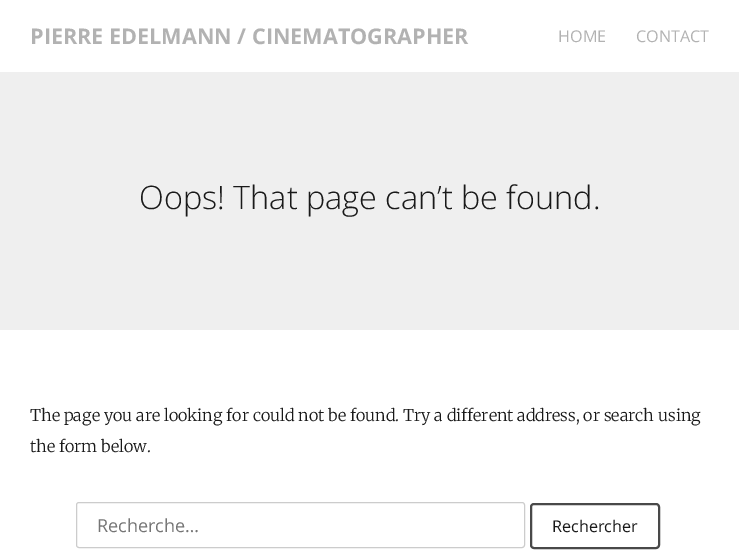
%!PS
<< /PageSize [739 550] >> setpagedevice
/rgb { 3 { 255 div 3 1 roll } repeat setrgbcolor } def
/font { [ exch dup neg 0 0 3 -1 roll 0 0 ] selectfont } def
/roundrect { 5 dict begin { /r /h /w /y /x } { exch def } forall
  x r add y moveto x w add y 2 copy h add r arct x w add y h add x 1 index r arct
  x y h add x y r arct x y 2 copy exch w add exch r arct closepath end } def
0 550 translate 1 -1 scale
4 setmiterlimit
255 255 255 rgb
0 0 739 550 rectfill
239 239 239 rgb
0 72 739 258 rectfill
204 204 204 rgb
76.5 502.5 448 45 2.5 roundrect stroke
73 73 73 rgb
2 setlinewidth
531 504 128 44 3 roundrect stroke
/OpenSans-Bold 21.6 font
178 178 178 rgb
30 44 moveto (PIERRE EDELMANN / CINEMATOGRAPHER) show
/OpenSans-Regular 16.2 font
558 42 moveto (HOME) show
636 42 moveto (CONTACT) show
/OpenSans-Light 32.4 font
25 25 25 rgb
139 209 moveto (Oops! That page can’t be found.) show
/Merriweather-Light 16.2 font
30 421 moveto (The page you are looking for could not be found. Try a different address, or search using) show
30 452 moveto (the form below.) show
/OpenSans-Regular 18 font
117 117 117 rgb
97 532 moveto (Recherche…) show
/OpenSans-Regular 16.2 font
25 25 25 rgb
552 532 moveto (Rechercher) show
showpage
